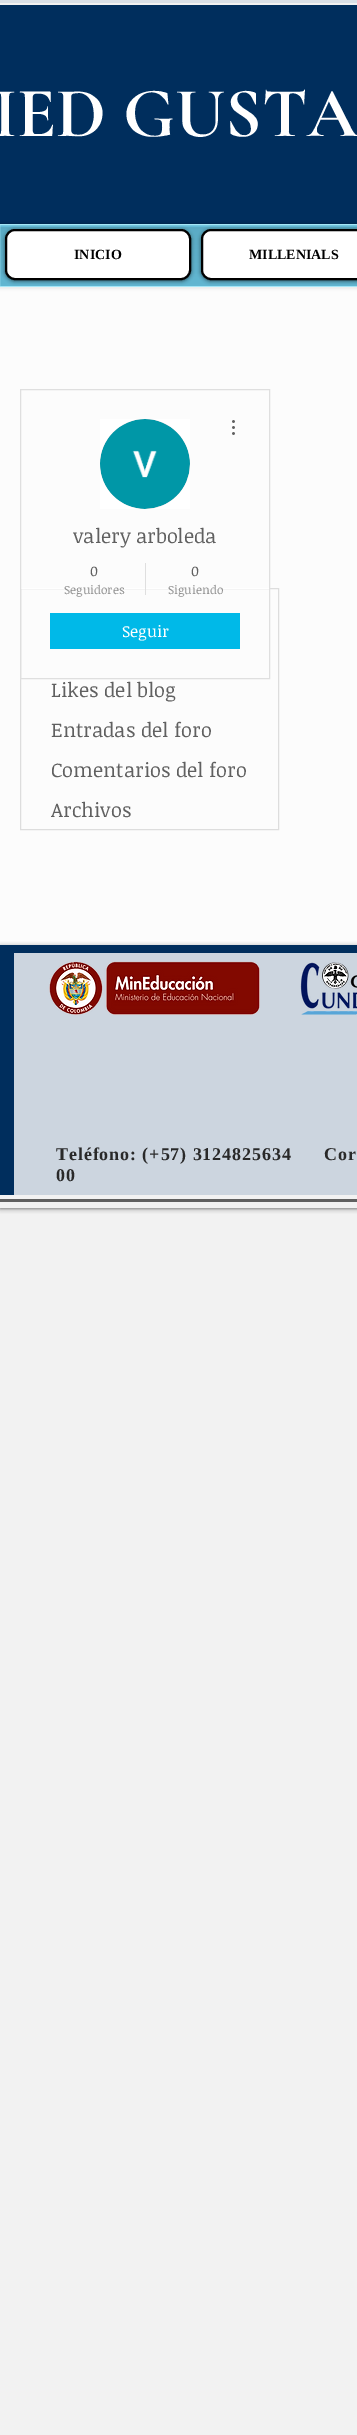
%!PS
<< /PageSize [357 2435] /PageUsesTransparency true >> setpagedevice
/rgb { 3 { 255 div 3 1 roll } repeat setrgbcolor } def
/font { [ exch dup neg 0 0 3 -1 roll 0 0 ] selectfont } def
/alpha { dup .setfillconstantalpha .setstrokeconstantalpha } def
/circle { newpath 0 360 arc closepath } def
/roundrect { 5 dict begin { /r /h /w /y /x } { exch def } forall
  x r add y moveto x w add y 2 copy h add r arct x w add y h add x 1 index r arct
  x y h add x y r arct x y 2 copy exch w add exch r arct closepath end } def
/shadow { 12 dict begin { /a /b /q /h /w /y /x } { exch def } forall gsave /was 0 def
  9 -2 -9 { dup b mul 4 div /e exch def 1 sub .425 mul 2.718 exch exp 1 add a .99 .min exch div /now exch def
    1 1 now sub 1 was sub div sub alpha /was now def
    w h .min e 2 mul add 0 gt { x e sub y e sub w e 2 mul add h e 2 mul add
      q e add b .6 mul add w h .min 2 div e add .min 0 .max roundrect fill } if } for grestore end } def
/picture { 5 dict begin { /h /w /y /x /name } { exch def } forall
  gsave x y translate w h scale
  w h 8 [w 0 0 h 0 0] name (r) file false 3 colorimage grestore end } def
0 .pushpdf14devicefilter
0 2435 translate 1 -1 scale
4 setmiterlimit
242 242 242 rgb
0 0 357 2435 rectfill
0 46 93 rgb
0 5 357 219 rectfill
217 224 231 rgb
0 0 357 3 rectfill
0 0 0 rgb
-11 225 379 63 5 2 0.6 shadow
100 188 216 rgb
0 225 357 61 rectfill
(img/1.rgb) 0 227 357 59 picture
164 230 247 rgb
-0.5 224.5 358 62 rectstroke
0 0 0 rgb
5 230 186 51 10 2 0.6 shadow
255 255 255 rgb
6 230 184 49 9 roundrect gsave fill grestore
0 0 0 rgb
2 setlinewidth
stroke
201 230 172 51 10 2 0.6 shadow
255 255 255 rgb
202 230 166 49 9 roundrect gsave fill grestore
0 0 0 rgb
stroke
0.8 alpha
255 255 255 rgb
0 287 357 658 rectfill
1 alpha
221 221 221 rgb
1 setlinewidth
20.5 588.5 258 241 rectstroke
255 255 255 rgb
21 588 248 1 rectfill
223 223 223 rgb
20.5 389.5 249 289 rectstroke
216 216 216 rgb
145 464 45 circle fill
(img/2.rgb) 100 419 90 90 picture
(img/3.rgb) 232 420 3 15 picture
223 223 223 rgb
145 563 1 32 rectfill
0 185 232 rgb
50 613 190 36 rectfill
gsave
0 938 moveto 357 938 lineto 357 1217 lineto 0 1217 lineto closepath 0 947 moveto 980 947 lineto 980 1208 lineto 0 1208 lineto closepath eoclip newpath
0 0 0 rgb
0 947 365 261 0 2.5 0.7 shadow
grestore
[
  [0 1199 357 3 96 96 96]
  [0 945 357 250 0 46 93]
  [14 953 343 242 204 213 223]
] { aload pop rgb rectfill } forall
(img/4.rgb) 49 961 211 54 picture
(img/5.rgb) 300 962 57 53 picture
/CormorantGaramond-Bold 71 font
255 255 255 rgb
-7 136 moveto (IED GUSTA) show
/LiberationSerif-Bold 14 font
0 0 0 rgb
74 259 moveto (INICIO) show
249 259 moveto (MILLENIALS) show
/NoticiaText-Regular 20 font
96 96 96 rgb
73 543 moveto (valery arboleda) show
/NoticiaText-Regular 14 font
90 576 moveto (0) show
/NoticiaText-Regular 12 font
144 144 144 rgb
64 594 moveto (Seguidores) show
/NoticiaText-Regular 14 font
96 96 96 rgb
191 576 moveto (0) show
/NoticiaText-Regular 12 font
144 144 144 rgb
168 594 moveto (Siguiendo) show
/NoticiaText-Regular 16 font
255 255 255 rgb
122 637 moveto (Seguir) show
/NoticiaText-Regular 20 font
96 96 96 rgb
[
  [(Likes del blog) 51 697]
  [(Entradas del foro) 51 737]
  [(Comentarios del foro) 51 777]
  [(Archivos) 51 817]
] { aload pop moveto show } forall
/LiberationSerif-Bold 18 font
41 41 41 rgb
56 1160 moveto 0.9 0 (Teléfono: \(+57\) 3124825634      Cor) ashow
56 1181 moveto 0.9 0 (00) ashow
.poppdf14devicefilter showpage
